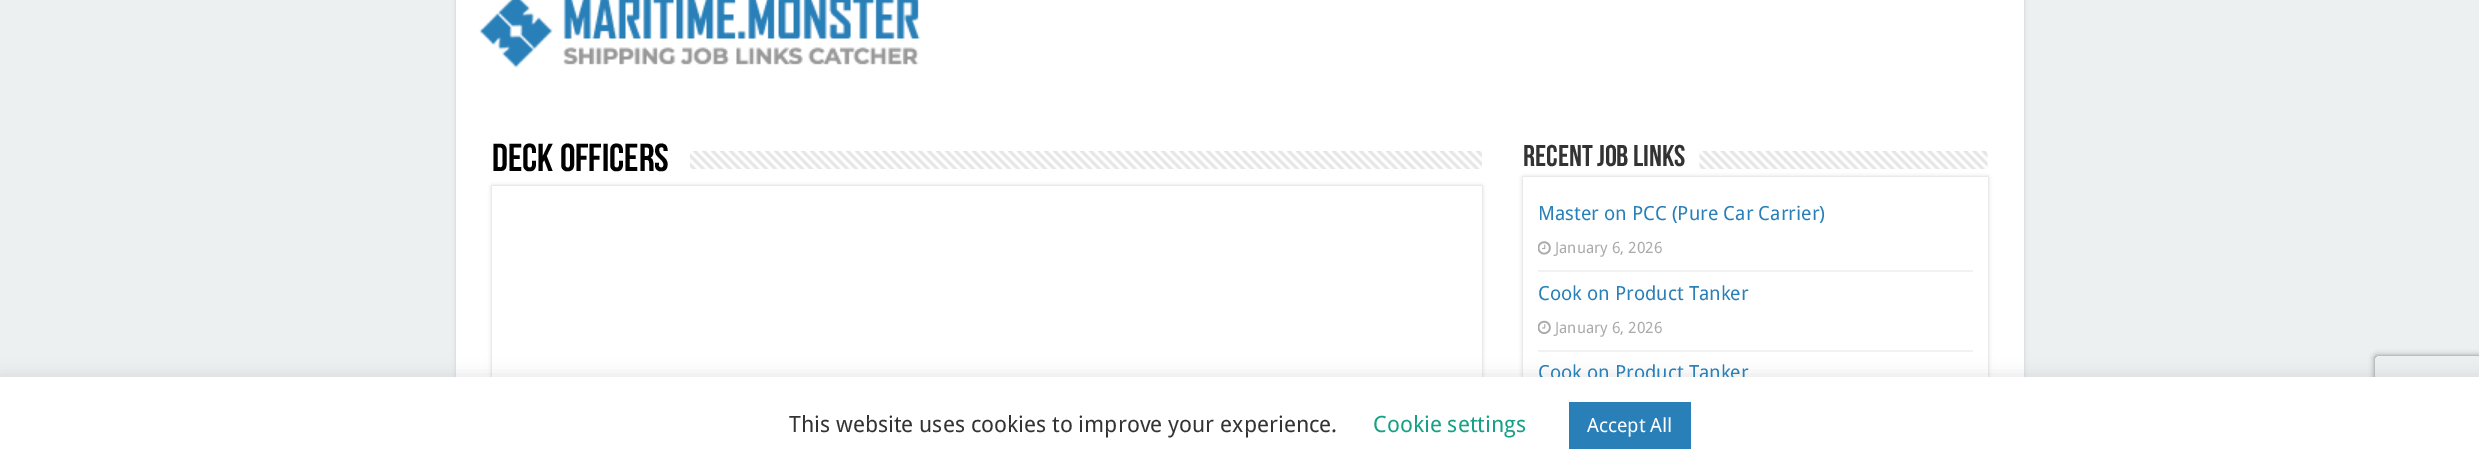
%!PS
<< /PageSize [2479 466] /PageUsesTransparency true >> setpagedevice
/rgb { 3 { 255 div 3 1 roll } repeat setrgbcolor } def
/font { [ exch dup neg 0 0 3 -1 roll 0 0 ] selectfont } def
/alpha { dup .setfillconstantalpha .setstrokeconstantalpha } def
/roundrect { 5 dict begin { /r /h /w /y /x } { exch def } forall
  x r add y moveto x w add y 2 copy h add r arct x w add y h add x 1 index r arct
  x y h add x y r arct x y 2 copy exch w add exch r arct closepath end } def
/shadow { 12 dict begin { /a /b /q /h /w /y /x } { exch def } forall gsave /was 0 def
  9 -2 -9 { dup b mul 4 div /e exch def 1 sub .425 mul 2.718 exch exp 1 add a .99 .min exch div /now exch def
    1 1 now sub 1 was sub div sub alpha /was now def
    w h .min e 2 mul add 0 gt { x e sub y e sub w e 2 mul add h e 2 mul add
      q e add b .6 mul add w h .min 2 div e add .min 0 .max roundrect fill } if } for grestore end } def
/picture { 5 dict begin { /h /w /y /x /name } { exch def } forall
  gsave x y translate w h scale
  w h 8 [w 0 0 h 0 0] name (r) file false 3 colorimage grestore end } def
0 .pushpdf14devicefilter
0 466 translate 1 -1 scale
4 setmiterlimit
236 240 241 rgb
0 0 2479 466 rectfill
202 202 202 rgb
456 -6 1568 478 0 2 1 shadow
255 255 255 rgb
456 0 1568 377 rectfill
(img/1.rgb) 479 0 441 68 picture
(img/2.rgb) 690 151 792 18 picture
gsave
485 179 moveto 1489 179 lineto 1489 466 lineto 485 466 lineto closepath 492 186 moveto 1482 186 lineto 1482 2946 lineto 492 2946 lineto closepath eoclip newpath
202 202 202 rgb
492 186 990 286 0 2 1 shadow
grestore
(img/3.rgb) 1699 151 289 18 picture
202 202 202 rgb
1523 177 465 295 0 2 1 shadow
255 255 255 rgb
1523 177 465 200 rectfill
242 242 242 rgb
1538 270 435 2 rectfill
(img/4.rgb) 1538 241 13 14 picture
1538 350 435 2 rectfill
(img/5.rgb) 1538 320 13 15 picture
172 171 171 rgb
0 375 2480 90 0 7.5 0.3 shadow
gsave
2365 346 moveto 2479 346 lineto 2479 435 lineto 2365 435 lineto closepath 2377 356 moveto 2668 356 lineto 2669 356 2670 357 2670 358 curveto 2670 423 lineto 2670 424 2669 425 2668 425 curveto 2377 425 lineto 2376 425 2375 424 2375 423 curveto 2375 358 lineto 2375 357 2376 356 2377 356 curveto closepath eoclip newpath
128 128 128 rgb
2375 356 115 69 2 3 1 shadow
grestore
/BebasNeue-Bold 39 font
0 0 0 rgb
492 171 moveto (Deck Officers) show
/BebasNeue-Bold 30 font
51 51 51 rgb
1523 166 moveto (Recent job links) show
/DroidSans-Regular 19.5 font
41 128 185 rgb
1538 220 moveto (Master on PCC \(Pure Car Carrier\)) show
/DroidSans-Regular 15.5 font
170 170 170 rgb
1555 253 moveto (January 6, 2026) show
/DroidSans-Regular 19.5 font
41 128 185 rgb
1538 300 moveto (Cook on Product Tanker) show
/DroidSans-Regular 15.5 font
170 170 170 rgb
1555 333 moveto (January 6, 2026) show
/DroidSans-Regular 19.5 font
41 128 185 rgb
1538 379 moveto (Cook on Product Tanker) show
255 255 255 rgb
0 377 2479 89 rectfill
/DroidSans-Regular 22.5 font
51 51 51 rgb
789 432 moveto (This website uses cookies to improve your experience.) show
22 160 133 rgb
1373 432 moveto (Cookie settings) show
41 128 185 rgb
1569 402 122 47 rectfill
/DroidSans-Regular 19.5 font
255 255 255 rgb
1587 432 moveto (Accept All) show
.poppdf14devicefilter showpage
